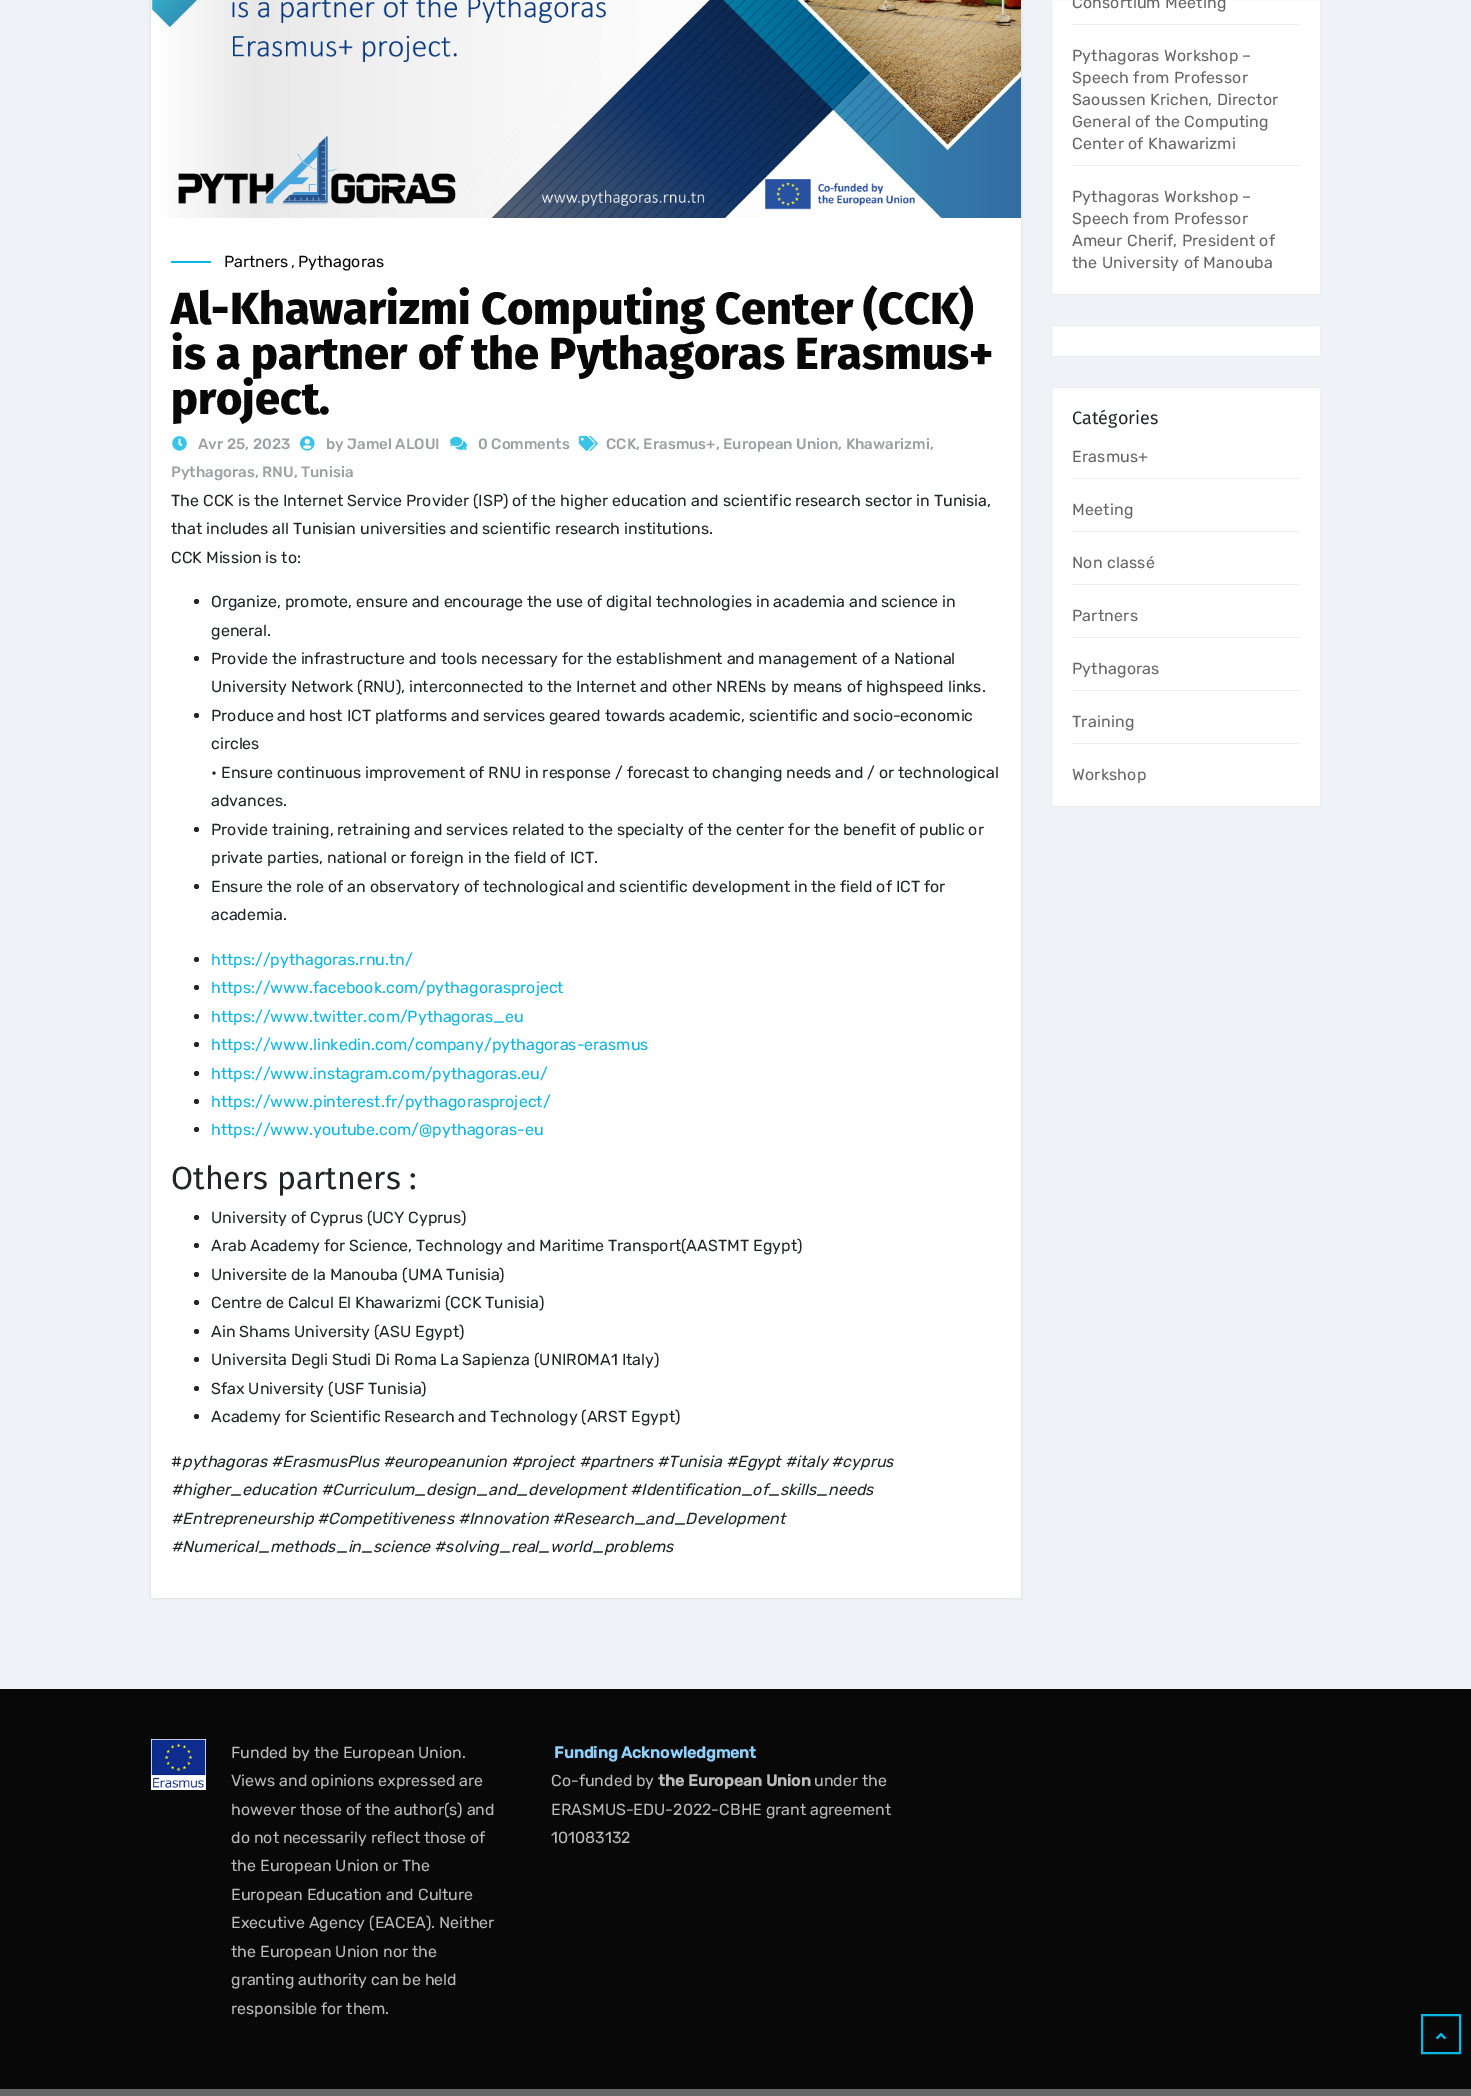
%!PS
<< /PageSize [1471 2096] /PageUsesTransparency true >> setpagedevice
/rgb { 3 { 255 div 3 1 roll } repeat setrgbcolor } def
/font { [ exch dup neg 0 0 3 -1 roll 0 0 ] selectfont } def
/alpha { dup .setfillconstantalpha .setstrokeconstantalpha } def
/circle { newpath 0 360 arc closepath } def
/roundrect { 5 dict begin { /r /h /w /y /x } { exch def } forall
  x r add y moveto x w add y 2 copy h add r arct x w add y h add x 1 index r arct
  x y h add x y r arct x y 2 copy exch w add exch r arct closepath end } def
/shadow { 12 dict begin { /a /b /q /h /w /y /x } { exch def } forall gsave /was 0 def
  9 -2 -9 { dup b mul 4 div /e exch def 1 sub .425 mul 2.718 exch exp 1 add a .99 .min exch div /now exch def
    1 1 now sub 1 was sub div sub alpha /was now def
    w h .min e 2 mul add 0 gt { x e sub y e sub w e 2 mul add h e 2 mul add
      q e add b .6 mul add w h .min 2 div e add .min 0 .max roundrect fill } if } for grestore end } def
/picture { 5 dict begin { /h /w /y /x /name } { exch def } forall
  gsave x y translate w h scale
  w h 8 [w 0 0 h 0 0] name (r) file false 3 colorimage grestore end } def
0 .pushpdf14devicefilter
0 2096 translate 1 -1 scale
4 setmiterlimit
239 242 247 rgb
0 0 1471 2096 rectfill
0 0 0 rgb
151 -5 870 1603 0 1.5 0.1 shadow
255 255 255 rgb
151 218 870 1380 rectfill
(img/1.rgb) 151 0 870 218 picture
9 183 226 rgb
171 261 40 2 rectfill
(img/2.rgb) 579 435 19 16 picture
(img/3.rgb) 172 436 15 15 picture
(img/4.rgb) 300 436 15 15 picture
(img/5.rgb) 450 436 17 14 picture
33 37 41 rgb
196.5 601.5 2.5 circle fill
196.5 658.5 2.5 circle fill
196.5 715.5 2.5 circle fill
196.5 829.5 2.5 circle fill
196.5 886.5 2.5 circle fill
196.5 959.5 2.5 circle fill
196.5 987.5 2.5 circle fill
196.5 1016.5 2.5 circle fill
196.5 1044.5 2.5 circle fill
196.5 1073.5 2.5 circle fill
196.5 1101.5 2.5 circle fill
196.5 1129.5 2.5 circle fill
196.5 1217.5 2.5 circle fill
196.5 1245.5 2.5 circle fill
196.5 1274.5 2.5 circle fill
196.5 1302.5 2.5 circle fill
196.5 1331.5 2.5 circle fill
196.5 1359.5 2.5 circle fill
196.5 1388.5 2.5 circle fill
196.5 1416.5 2.5 circle fill
255 255 255 rgb
1051.5 -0.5 moveto 1320.5 -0.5 lineto 1320.5 294.5 lineto 1051.5 294.5 lineto closepath gsave fill grestore
238 238 238 rgb
stroke
1072 24 228 1 rectfill
1072 165 228 1 rectfill
255 255 255 rgb
1051.5 325.5 moveto 1320.5 325.5 lineto 1320.5 356.5 lineto 1051.5 356.5 lineto closepath gsave fill grestore
238 238 238 rgb
stroke
255 255 255 rgb
1051.5 387.5 moveto 1320.5 387.5 lineto 1320.5 806.5 lineto 1051.5 806.5 lineto closepath gsave fill grestore
238 238 238 rgb
stroke
[
  [1072 478 228 1 238 238 238]
  [1072 531 228 1 238 238 238]
  [1072 584 228 1 238 238 238]
  [1072 637 228 1 238 238 238]
  [1072 690 228 1 238 238 238]
  [1072 743 228 1 238 238 238]
  [0 1689 1471 400 8 8 8]
] { aload pop rgb rectfill } forall
(img/6.rgb) 151 1739 55 51 picture
102 102 102 rgb
0 2089 1471 7 rectfill
9 183 226 rgb
2 setlinewidth
1422 2015 38 38 rectstroke
(img/7.rgb) 1436 2032 10 8 picture
/Rubik-Regular 16 font
8 8 8 rgb
224 267 moveto (Partners) show
298 267 moveto (Pythagoras) show
33 37 41 rgb
291 267 moveto (,) show
/FiraSans-ExtraBold 45 font
8 8 8 rgb
[
  [(Al-Khawarizmi Computing Center \(CCK\)) 171 324]
  [(is a partner of the Pythagoras Erasmus+) 171 369]
  [(project.) 171 414]
] { aload pop moveto show } forall
/Rubik-Medium 15 font
157 161 163 rgb
[
  [(CCK, Erasmus+, European Union, Khawarizmi,) 606 449]
  [(Pythagoras, RNU, Tunisia) 171 477]
  [(Avr 25, 2023) 198 449]
  [(by Jamel ALOUI) 326 449]
  [(0 Comments) 478 449]
] { aload pop moveto show } forall
/Rubik-Regular 16 font
33 37 41 rgb
[
  [(The CCK is the Internet Service Provider \(ISP\) of the higher education and scientific research sector in Tunisia,) 171 506]
  [(that includes all Tunisian universities and scientific research institutions.) 171 534]
  [(CCK Mission is to:) 171 563]
  [(Organize, promote, ensure and encourage the use of digital technologies in academia and science in) 211 607]
  [(general.) 211 636]
  [(Provide the infrastructure and tools necessary for the establishment and management of a National) 211 664]
  [(University Network \(RNU\), interconnected to the Internet and other NRENs by means of highspeed links.) 211 692]
  [(Produce and host ICT platforms and services geared towards academic, scientific and socio-economic) 211 721]
  [(circles) 211 749]
  [(• Ensure continuous improvement of RNU in response / forecast to changing needs and / or technological) 211 778]
  [(advances.) 211 806]
  [(Provide training, retraining and services related to the specialty of the center for the benefit of public or) 211 835]
  [(private parties, national or foreign in the field of ICT.) 211 863]
  [(Ensure the role of an observatory of technological and scientific development in the field of ICT for) 211 892]
  [(academia.) 211 920]
] { aload pop moveto show } forall
9 183 226 rgb
[
  [(https://pythagoras.rnu.tn/) 211 965]
  [(https://www.facebook.com/pythagorasproject) 211 993]
  [(https://www.twitter.com/Pythagoras_eu) 211 1022]
  [(https://www.linkedin.com/company/pythagoras-erasmus) 211 1050]
  [(https://www.instagram.com/pythagoras.eu/) 211 1079]
  [(https://www.pinterest.fr/pythagorasproject/) 211 1107]
  [(https://www.youtube.com/@pythagoras-eu) 211 1135]
] { aload pop moveto show } forall
/FiraSans-Regular 32 font
33 37 41 rgb
171 1189 moveto (Others partners :) show
/Rubik-Regular 16 font
[
  [(University of Cyprus \(UCY Cyprus\)) 211 1223]
  [(Arab Academy for Science, Technology and Maritime Transport\(AASTMT Egypt\)) 211 1251]
  [(Universite de la Manouba \(UMA Tunisia\)) 211 1280]
  [(Centre de Calcul El Khawarizmi \(CCK Tunisia\)) 211 1308]
  [(Ain Shams University \(ASU Egypt\)) 211 1337]
  [(Universita Degli Studi Di Roma La Sapienza \(UNIROMA1 Italy\)) 211 1365]
  [(Sfax University \(USF Tunisia\)) 211 1394]
  [(Academy for Scientific Research and Technology \(ARST Egypt\)) 211 1422]
  [(#) 171 1467]
] { aload pop moveto show } forall
/Rubik-Italic 16 font
[
  [(pythagoras #ErasmusPlus #europeanunion #project #partners #Tunisia #Egypt #italy #cyprus) 182 1467]
  [(#higher_education #Curriculum_design_and_development #Identification_of_skills_needs) 171 1495]
  [(#Entrepreneurship #Competitiveness #Innovation #Research_and_Development) 171 1524]
  [(#Numerical_methods_in_science #solving_real_world_problems) 171 1552]
] { aload pop moveto show } forall
/Rubik-Regular 16 font
102 102 102 rgb
1072 8 moveto 0.2 0 (Consortium Meeting) ashow
1072 61 moveto 0.2 0 (Pythagoras Workshop –) ashow
1072 83 moveto 0.2 0 (Speech from Professor) ashow
1072 105 moveto 0.2 0 (Saoussen Krichen, Director) ashow
1072 127 moveto 0.2 0 (General of the Computing) ashow
1072 149 moveto 0.2 0 (Center of Khawarizmi) ashow
1072 202 moveto 0.2 0 (Pythagoras Workshop –) ashow
1072 224 moveto 0.2 0 (Speech from Professor) ashow
1072 246 moveto 0.2 0 (Ameur Cherif, President of) ashow
1072 268 moveto 0.2 0 (the University of Manouba) ashow
/FiraSans-Regular 18 font
33 37 41 rgb
1072 424 moveto (Catégories) show
/Rubik-Regular 16 font
102 102 102 rgb
1072 462 moveto 0.2 0 (Erasmus+) ashow
1072 515 moveto 0.2 0 (Meeting) ashow
1072 568 moveto 0.2 0 (Non classé) ashow
1072 621 moveto 0.2 0 (Partners) ashow
1072 674 moveto 0.2 0 (Pythagoras) ashow
1072 727 moveto 0.2 0 (Training) ashow
1072 780 moveto 0.2 0 (Workshop) ashow
187 187 187 rgb
[
  [(Funded by the European Union.) 231 1758]
  [(Views and opinions expressed are) 231 1786]
  [(however those of the author\(s\) and) 231 1815]
  [(do not necessarily reflect those of) 231 1843]
  [(the European Union or The) 231 1871]
  [(European Education and Culture) 231 1900]
  [(Executive Agency \(EACEA\). Neither) 231 1928]
  [(the European Union nor the) 231 1957]
  [(granting authority can be held) 231 1985]
  [(responsible for them.) 231 2014]
] { aload pop moveto show } forall
/Rubik-Bold 16 font
142 209 252 rgb
554 1758 moveto (Funding Acknowledgment) show
/Rubik-Regular 16 font
187 187 187 rgb
551 1786 moveto (Co-funded by) show
/Rubik-Bold 16 font
658 1786 moveto (the European Union) show
/Rubik-Regular 16 font
[
  [(under the) 814 1786]
  [(ERASMUS-EDU-2022-CBHE grant agreement) 551 1815]
  [(101083132) 551 1843]
] { aload pop moveto show } forall
.poppdf14devicefilter showpage
